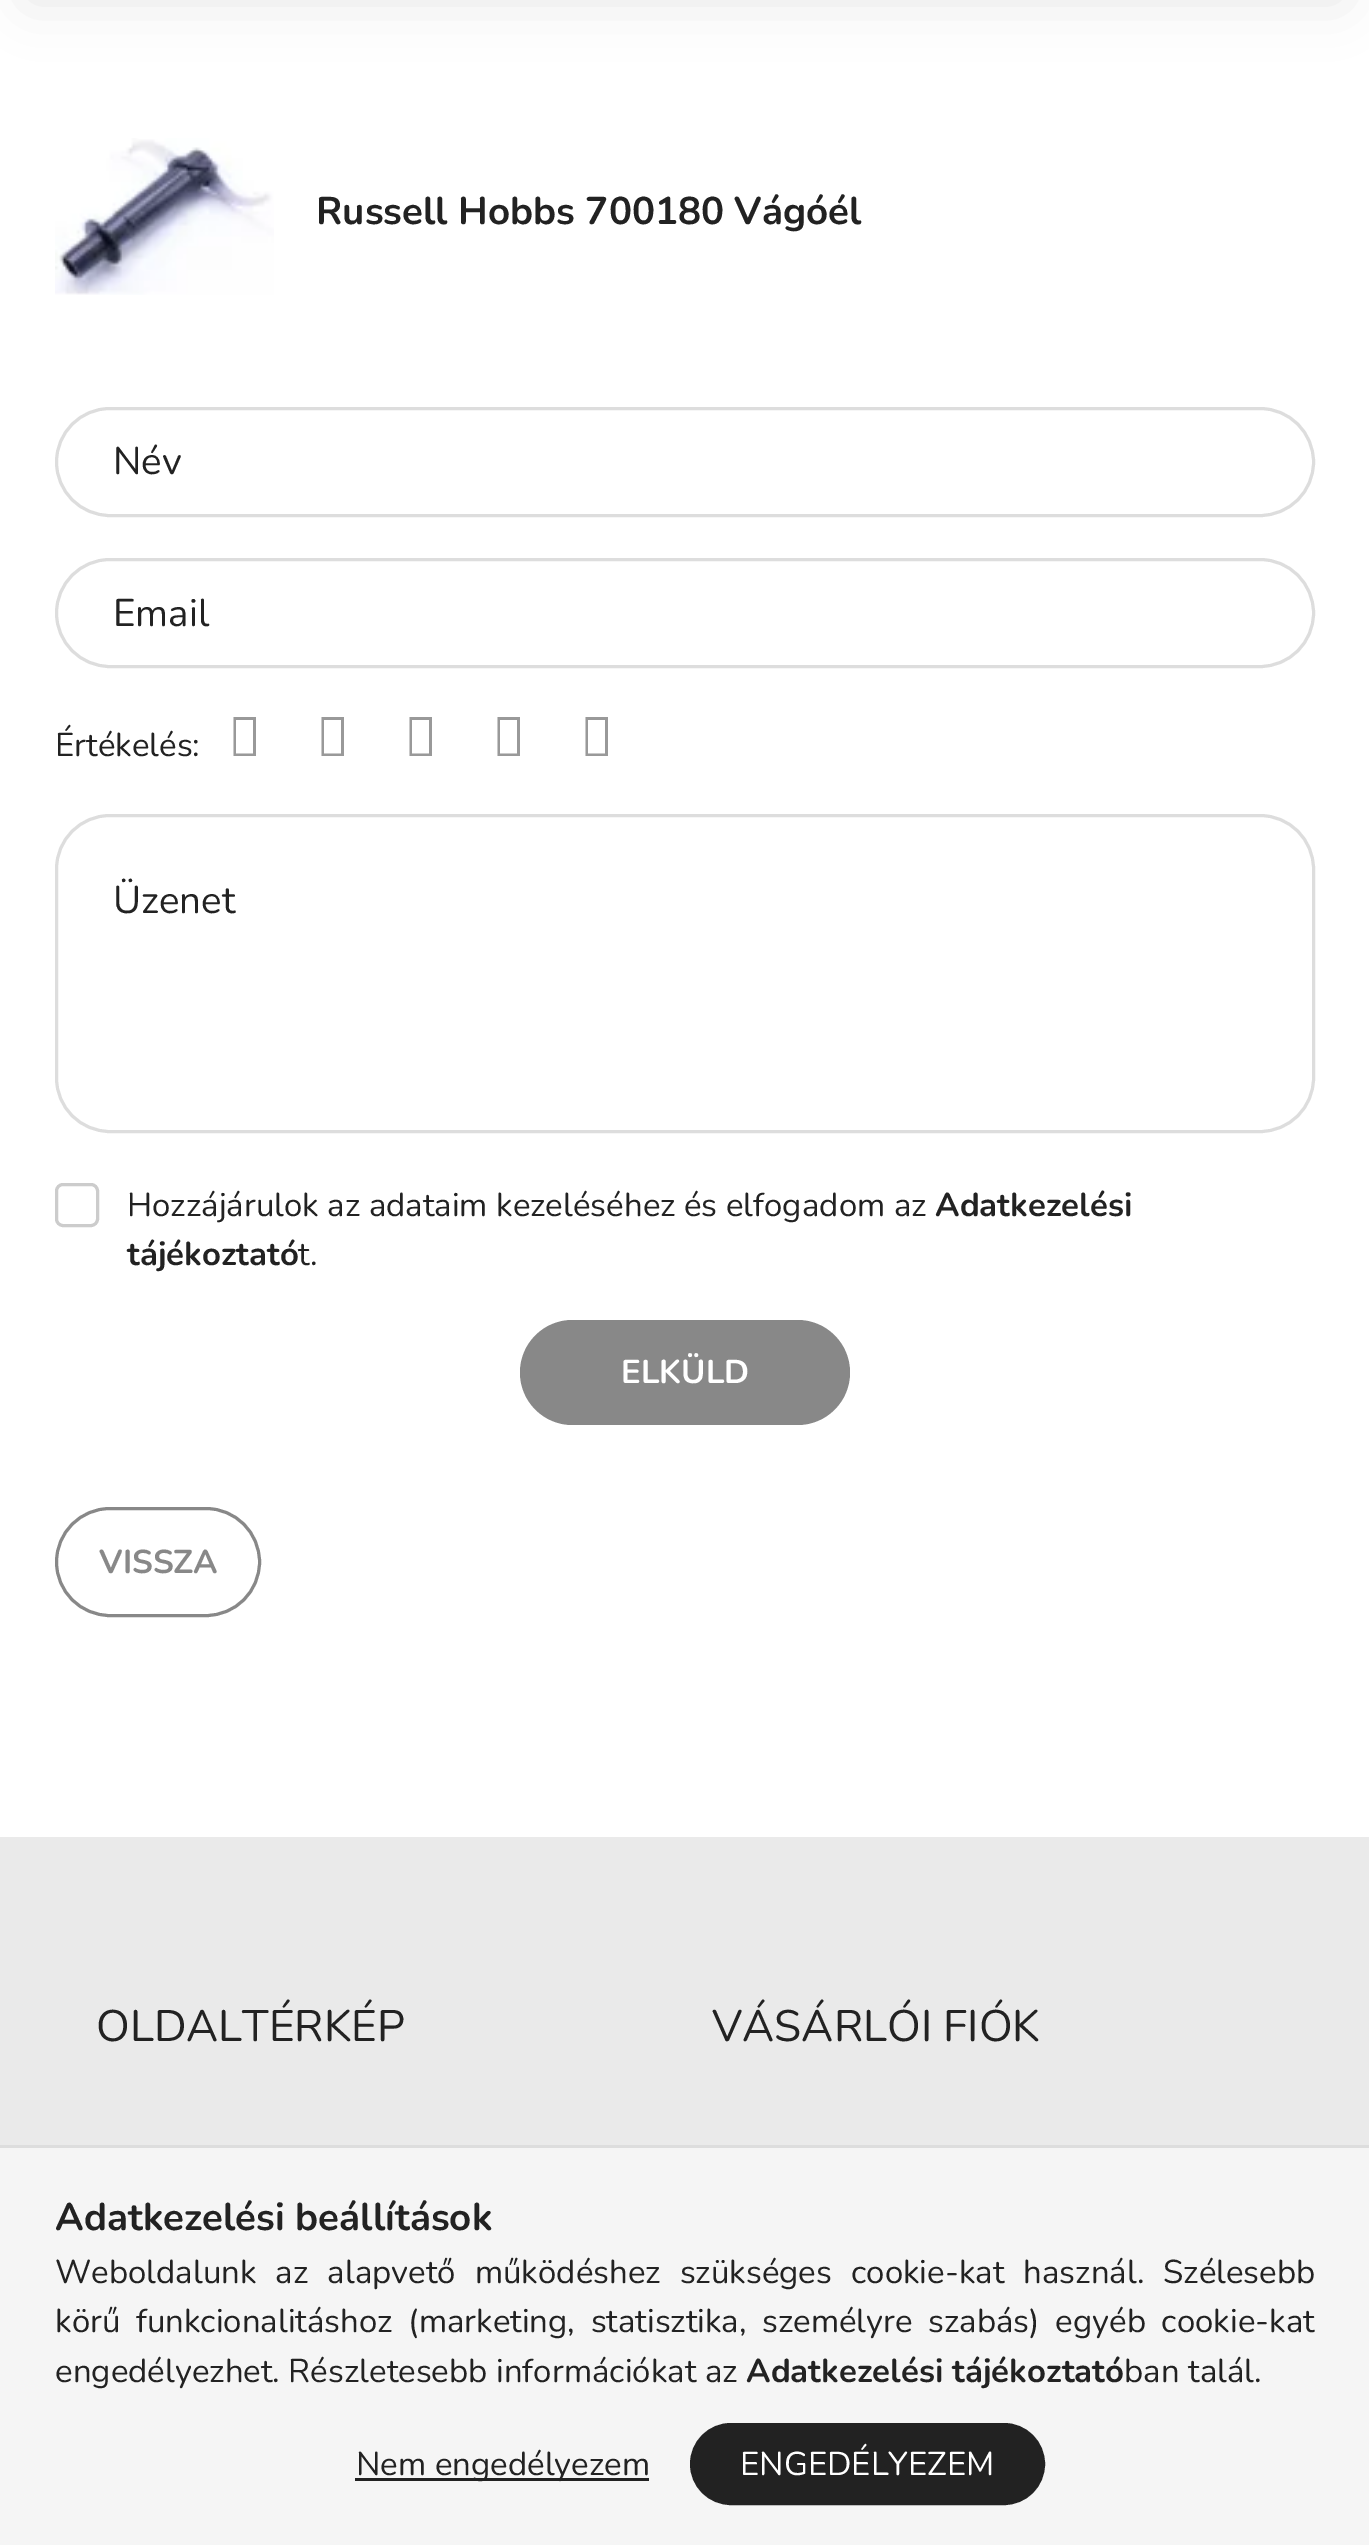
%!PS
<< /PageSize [1369 2545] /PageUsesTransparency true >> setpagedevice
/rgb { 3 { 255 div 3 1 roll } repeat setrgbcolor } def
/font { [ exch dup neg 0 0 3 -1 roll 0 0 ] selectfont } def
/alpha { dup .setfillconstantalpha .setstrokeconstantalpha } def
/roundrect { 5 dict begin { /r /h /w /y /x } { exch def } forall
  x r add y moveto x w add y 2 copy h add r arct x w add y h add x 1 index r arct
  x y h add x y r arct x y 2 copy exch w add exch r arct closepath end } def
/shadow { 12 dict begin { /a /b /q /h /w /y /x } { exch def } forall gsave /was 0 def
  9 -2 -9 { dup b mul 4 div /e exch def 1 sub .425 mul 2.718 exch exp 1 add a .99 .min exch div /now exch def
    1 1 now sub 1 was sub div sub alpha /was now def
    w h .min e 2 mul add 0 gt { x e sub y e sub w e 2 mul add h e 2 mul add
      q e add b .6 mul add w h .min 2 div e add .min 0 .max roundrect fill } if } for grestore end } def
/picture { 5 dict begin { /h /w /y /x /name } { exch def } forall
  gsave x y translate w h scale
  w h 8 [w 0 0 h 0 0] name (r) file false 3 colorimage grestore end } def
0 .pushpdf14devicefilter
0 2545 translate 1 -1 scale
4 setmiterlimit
255 255 255 rgb
0 0 1369 2545 rectfill
0 0 0 rgb
28 -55 1314 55 0 27.5 0.1 shadow
(img/1.rgb) 55 138 219 157 picture
221 221 221 rgb
3 setlinewidth
56.5 408.5 1257 107 53.5 roundrect stroke
56.5 559.5 1257 107 53.5 roundrect stroke
153 153 153 rgb
233.5 756 moveto 233.5 717 lineto 256 717 lineto 256 756 lineto closepath 236 753.5 moveto 253 753.5 lineto 253 720 lineto 236 720 lineto closepath fill
321.5 756 moveto 321.5 717 lineto 344 717 lineto 344 756 lineto closepath 324 753.5 moveto 341 753.5 lineto 341 720 lineto 324 720 lineto closepath fill
409.5 756 moveto 409.5 717 lineto 432 717 lineto 432 756 lineto closepath 412 753.5 moveto 429 753.5 lineto 429 720 lineto 412 720 lineto closepath fill
497.5 756 moveto 497.5 717 lineto 520 717 lineto 520 756 lineto closepath 500 753.5 moveto 517 753.5 lineto 517 720 lineto 500 720 lineto closepath fill
585.5 756 moveto 585.5 717 lineto 608 717 lineto 608 756 lineto closepath 588 753.5 moveto 605 753.5 lineto 605 720 lineto 588 720 lineto closepath fill
221 221 221 rgb
56.5 815.5 1257 316 53.5 roundrect stroke
204 204 204 rgb
56.5 1184.5 41 41 6.5 roundrect stroke
136 136 136 rgb
520 1320 330 105 52.5 roundrect fill
56.5 1508.5 203 107 53.5 roundrect stroke
[
  [0 1837 1369 308 234 234 234]
  [0 2148 1369 397 245 245 245]
  [0 2145 1369 3 221 221 221]
  [355 2478 294 3 34 34 34]
] { aload pop rgb rectfill } forall
691.5 2424.5 352 79 39.5 roundrect gsave fill grestore
stroke
/Nunito-Bold 38.5 font
316 224 moveto (Russell Hobbs 700180 Vágóél) show
/Nunito-Regular 38.5 font
113 474 moveto (Név) show
113 626 moveto (Email) show
/Nunito-Regular 33 font
55 756 moveto (Értékelés:) show
/Nunito-Regular 38.5 font
113 913 moveto (Üzenet) show
/Nunito-Regular 33 font
127 1216 moveto (Hozzájárulok az adataim kezeléséhez és elfogadom az) show
/Nunito-Bold 33 font
935 1216 moveto (Adatkezelési) show
127 1265 moveto (tájékoztató) show
/Nunito-Regular 33 font
298 1265 moveto (t.) show
/Nunito-Bold 33 font
255 255 255 rgb
621 1383 moveto (ELKÜLD) show
136 136 136 rgb
99 1573 moveto (VISSZA) show
/Nunito-Regular 44 font
34 34 34 rgb
96 2041 moveto (OLDALTÉRKÉP) show
712 2041 moveto (VÁSÁRLÓI FIÓK) show
/Nunito-Bold 38.5 font
55 2230 moveto (Adatkezelési beállítások) show
/Nunito-Regular 33 font
55 2283 moveto 10.5 0 32 (Weboldalunk az alapvető működéshez szükséges cookie-kat használ. Szélesebb) widthshow
55 2332 moveto 7 0 32 (körű funkcionalitáshoz \(marketing, statisztika, személyre szabás\) egyéb cookie-kat) widthshow
55 2382 moveto (engedélyezhet. Részletesebb információkat az) show
/Nunito-Bold 33 font
746 2382 moveto (Adatkezelési tájékoztató) show
/Nunito-Regular 33 font
1124 2382 moveto (ban talál.) show
356 2475 moveto (Nem engedélyezem) show
255 255 255 rgb
740 2475 moveto (ENGEDÉLYEZEM) show
.poppdf14devicefilter showpage
